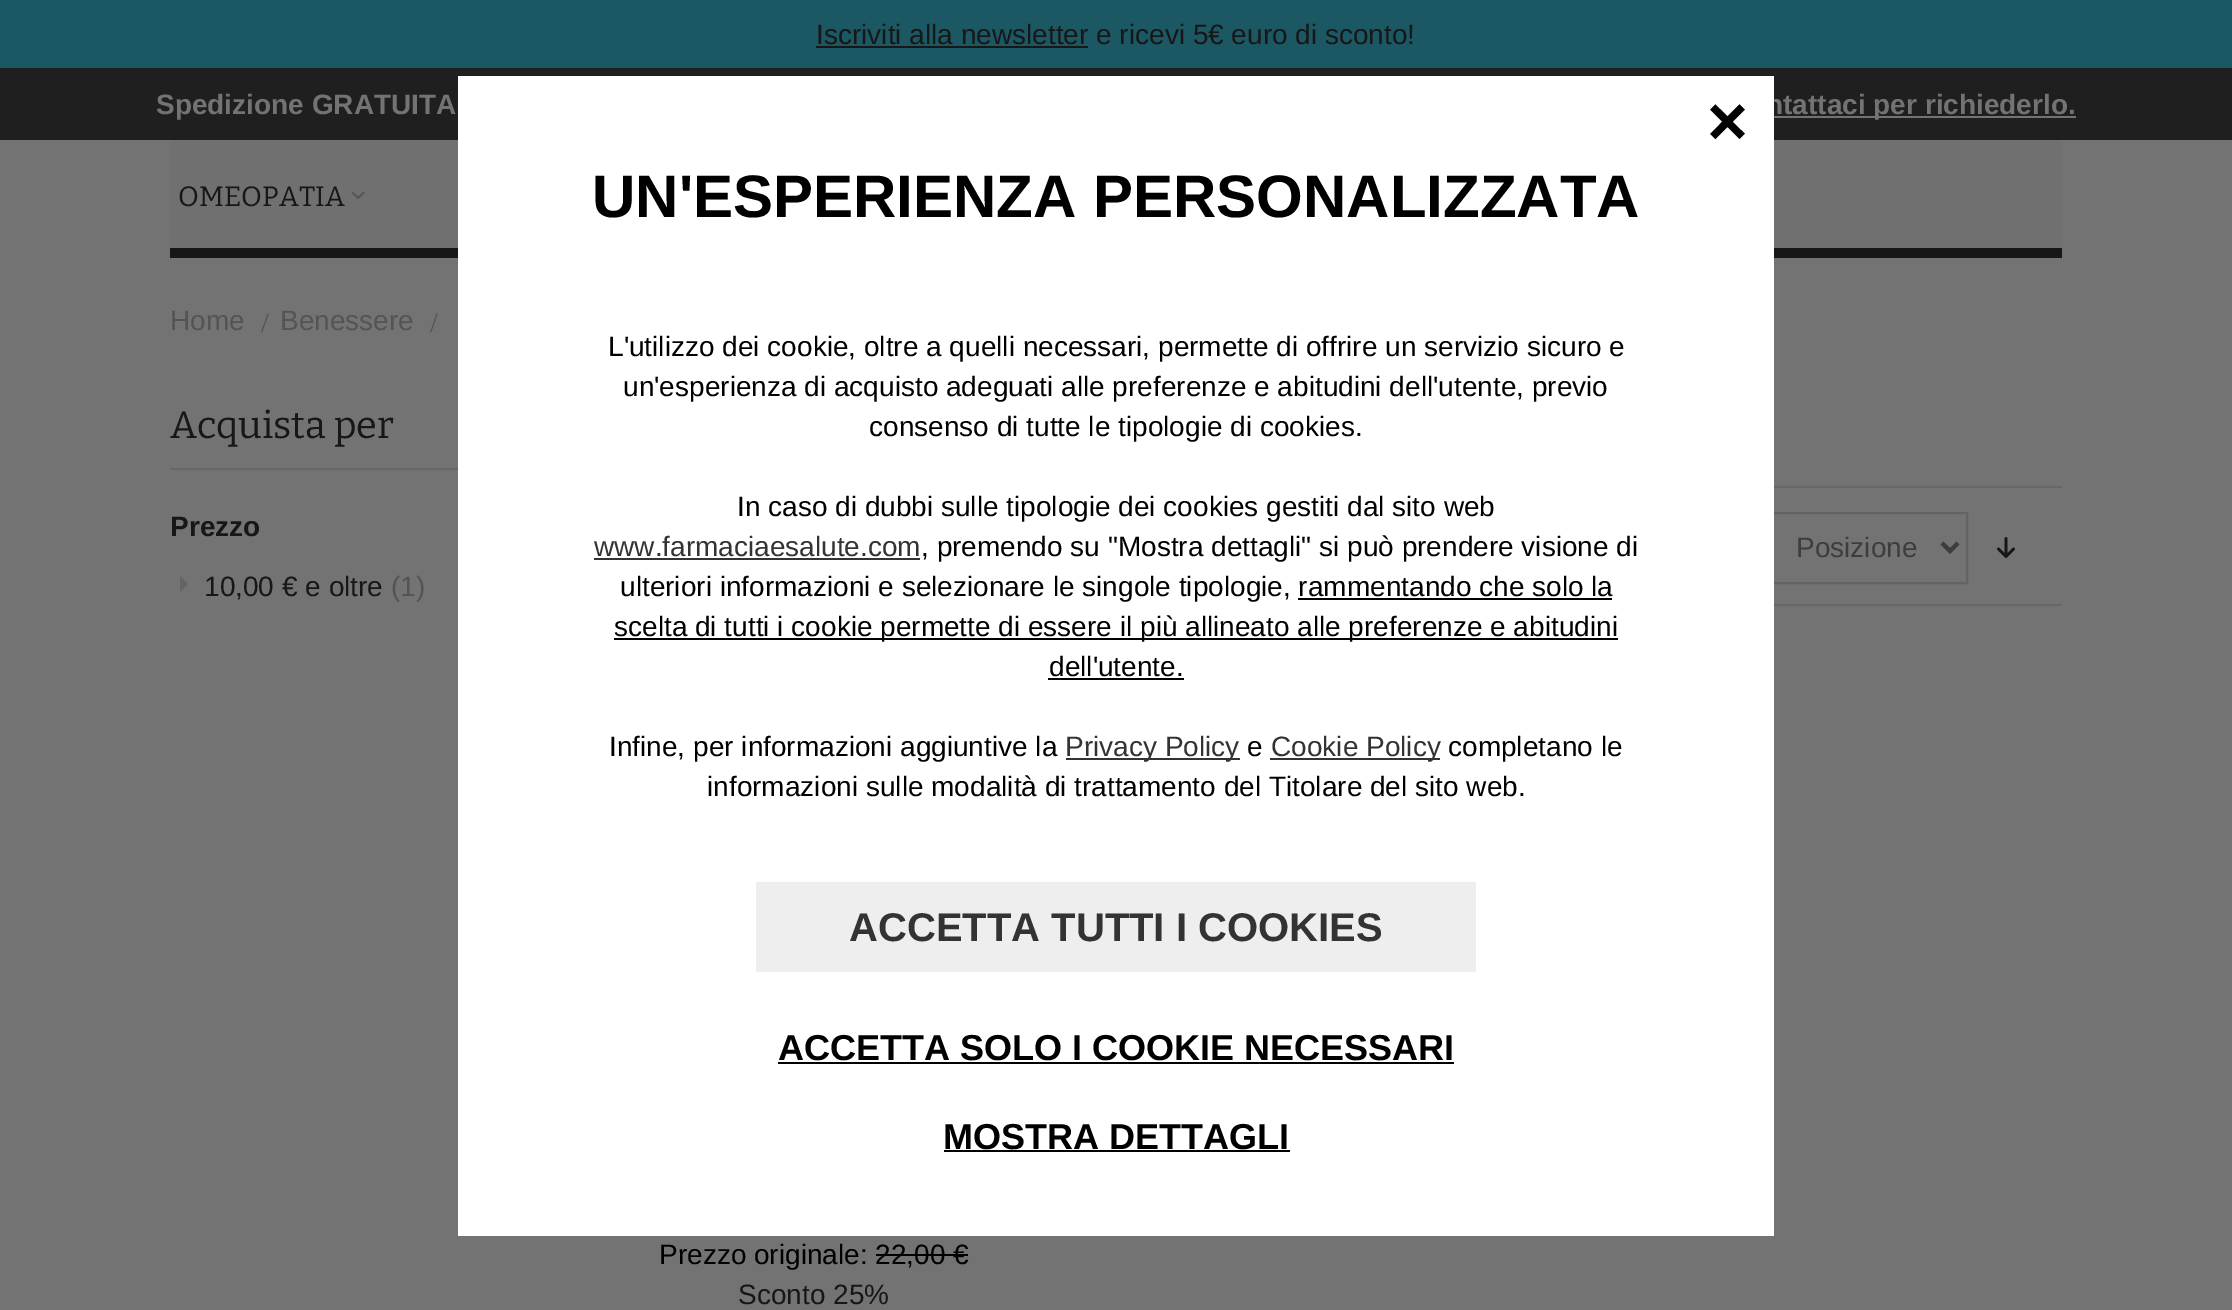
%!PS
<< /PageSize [2232 1310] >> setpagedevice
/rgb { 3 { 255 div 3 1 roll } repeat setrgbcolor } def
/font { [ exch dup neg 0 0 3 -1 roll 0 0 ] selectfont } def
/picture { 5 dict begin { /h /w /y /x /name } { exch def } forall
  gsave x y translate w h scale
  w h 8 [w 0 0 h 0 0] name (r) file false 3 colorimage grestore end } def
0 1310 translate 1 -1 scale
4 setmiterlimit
115 115 115 rgb
0 0 2232 1310 rectfill
[
  [0 0 2232 68 28 87 100]
  [816 46 272 2 23 23 23]
  [0 68 2232 72 31 31 32]
  [1774 116 302 2 115 115 115]
  [170 140 1892 108 112 112 112]
] { aload pop rgb rectfill } forall
(img/1.rgb) 351 191 14 8 picture
23 23 23 rgb
170 248 1892 10 rectfill
103 103 103 rgb
170 468 288 2 rectfill
99 99 99 rgb
180 592 moveto 180 576 lineto 188 584 lineto closepath fill
103 103 103 rgb
1774 486 288 2 rectfill
1774 604 288 2 rectfill
99 99 99 rgb
2 setlinewidth
1771 513 196 70 rectstroke
61 61 61 rgb
4 setlinewidth
1942 543 moveto 1950 551 lineto 1958 543 lineto stroke
(img/2.rgb) 1997 537 18 21 picture
0 0 0 rgb
876 1254 92 2 rectfill
/LiberationSans-Regular 28 font
23 23 23 rgb
816 44 moveto (Iscriviti alla newsletter e ricevi 5€ euro di sconto!) show
/LiberationSans-Bold 28 font
115 115 115 rgb
156 114 moveto (Spedizione GRATUITA) show
1766 114 moveto (ntattaci per richiederlo.) show
/Bitter-Thin 28 font
23 23 23 rgb
178 206 moveto (OMEOPATIA) show
255 255 255 rgb
458 76 1316 1160 rectfill
/LiberationSans-Bold 70 font
0 0 0 rgb
1707 145 moveto (×) show
/LiberationSans-Bold 60 font
592 217 moveto (UN'ESPERIENZA PERSONALIZZATA) show
/LiberationSans-Regular 28 font
[
  [(L'utilizzo dei cookie, oltre a quelli necessari, permette di offrire un servizio sicuro e) 608 356]
  [(un'esperienza di acquisto adeguati alle preferenze e abitudini dell'utente, previo) 623 396]
  [(consenso di tutte le tipologie di cookies.) 869 436]
  [(In caso di dubbi sulle tipologie dei cookies gestiti dal sito web) 737 516]
] { aload pop moveto show } forall
51 51 51 rgb
594 556 moveto (www.farmaciaesalute.com) show
594 558 326 2 rectfill
0 0 0 rgb
921 556 moveto (, premendo su "Mostra dettagli" si può prendere visione di) show
620 596 moveto (ulteriori informazioni e selezionare le singole tipologie, rammentando che solo la) show
1298 598 314 2 rectfill
614 638 1004 2 rectfill
614 636 moveto (scelta di tutti i cookie permette di essere il più allineato alle preferenze e abitudini) show
1049 676 moveto (dell'utente.) show
1048 678 136 2 rectfill
609 756 moveto (Infine, per informazioni aggiuntive la) show
51 51 51 rgb
1066 758 174 2 rectfill
1065 756 moveto (Privacy Policy) show
0 0 0 rgb
1247 756 moveto (e) show
51 51 51 rgb
1270 758 170 2 rectfill
1271 756 moveto (Cookie Policy) show
0 0 0 rgb
1448 756 moveto (completano le) show
707 796 moveto (informazioni sulle modalità di trattamento del Titolare del sito web.) show
238 238 238 rgb
756 882 720 90 rectfill
/LiberationSans-Bold 40 font
51 51 51 rgb
849 941 moveto (ACCETTA TUTTI I COOKIES) show
/LiberationSans-Bold 36 font
0 0 0 rgb
778 1060 moveto (ACCETTA SOLO I COOKIE NECESSARI) show
778 1062 676 2 rectfill
943 1149 moveto (MOSTRA DETTAGLI) show
944 1150 346 2 rectfill
/LiberationSans-Regular 28 font
84 84 84 rgb
170 330 moveto (Home) show
/LiberationSerif-Regular 28 font
261 332 moveto (/) show
/LiberationSans-Regular 28 font
280 330 moveto (Benessere) show
/LiberationSerif-Regular 28 font
430 332 moveto (/) show
/Bitter-Thin 38 font
23 23 23 rgb
170 438 moveto (Acquista per) show
/LiberationSans-Bold 28 font
170 536 moveto (Prezzo) show
/LiberationSans-Regular 28 font
204 596 moveto (10,00 € e oltre) show
84 84 84 rgb
391 596 moveto (\(1\)) show
61 61 61 rgb
1796 557 moveto (Posizione) show
0 0 0 rgb
659 1264 moveto (Prezzo originale: 22,00 €) show
23 23 23 rgb
738 1304 moveto (Sconto 25%) show
showpage
